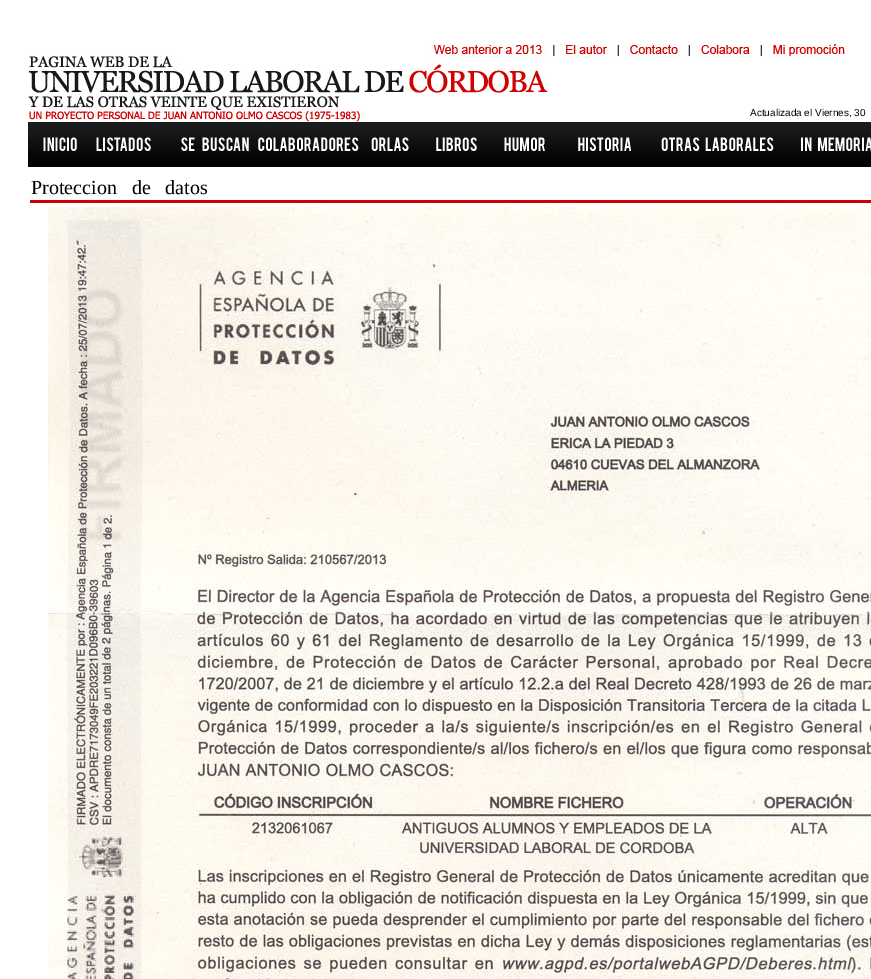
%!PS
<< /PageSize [871 979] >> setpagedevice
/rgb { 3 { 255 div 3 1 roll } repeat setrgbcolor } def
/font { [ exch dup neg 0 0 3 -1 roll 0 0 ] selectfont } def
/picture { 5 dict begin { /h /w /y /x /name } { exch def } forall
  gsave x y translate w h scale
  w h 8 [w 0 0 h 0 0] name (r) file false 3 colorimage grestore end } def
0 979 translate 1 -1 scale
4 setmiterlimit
255 255 255 rgb
0 0 871 979 rectfill
(img/1.rgb) 29 44 471 25 picture
(img/2.rgb) 500 44 48 16 picture
(img/3.rgb) 553 44 56 16 picture
(img/4.rgb) 617 44 64 16 picture
(img/5.rgb) 688 44 64 16 picture
(img/6.rgb) 760 44 88 16 picture
(img/7.rgb) 28 69 520 53 picture
(img/8.rgb) 28 122 59 45 picture
(img/9.rgb) 87 122 81 45 picture
(img/10.rgb) 168 122 90 45 picture
(img/11.rgb) 258 122 101 45 picture
(img/12.rgb) 359 122 64 45 picture
(img/13.rgb) 423 122 67 45 picture
(img/14.rgb) 490 122 72 45 picture
(img/15.rgb) 562 122 86 45 picture
(img/16.rgb) 648 122 139 45 picture
(img/17.rgb) 787 122 84 45 picture
206 0 0 rgb
30 200 841 3 rectfill
(img/18.rgb) 48 207 823 772 picture
/LiberationSans-Regular 10 font
0 0 0 rgb
750 116 moveto (Actualizada el Viernes, 30) show
/LiberationSerif-Regular 20 font
31 194 moveto (Proteccion   de   datos) show
showpage
